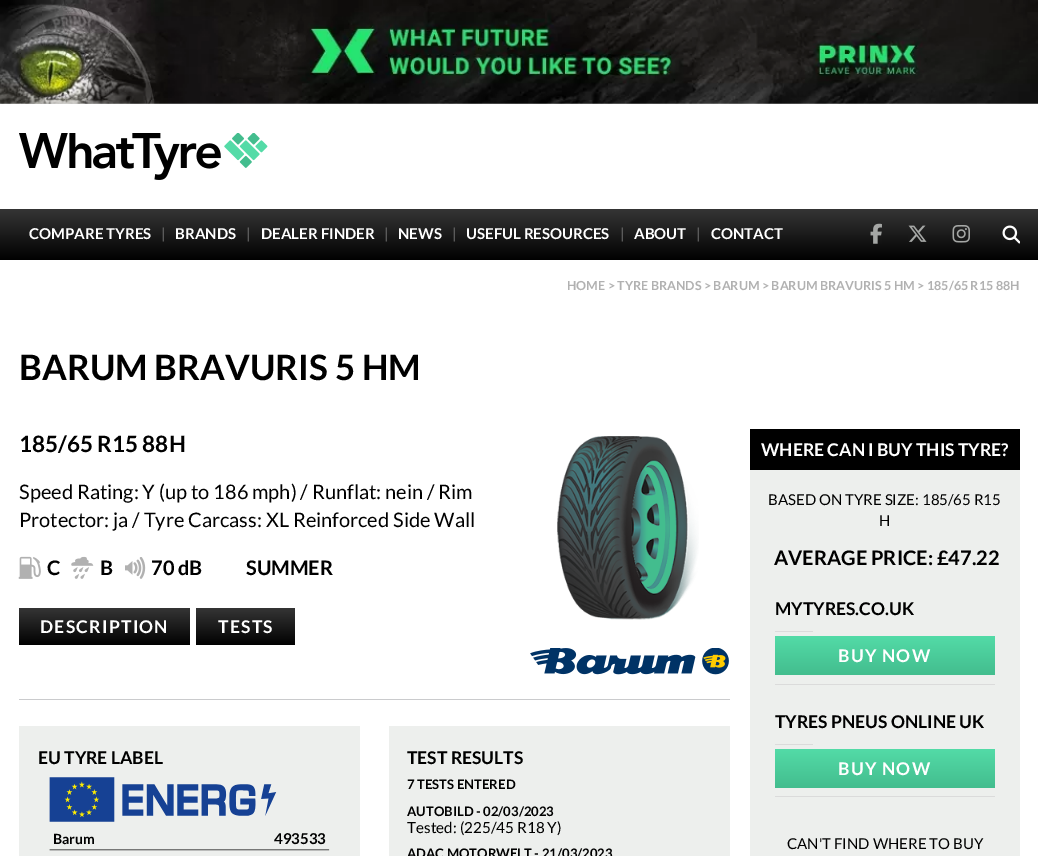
%!PS
<< /PageSize [1038 856] >> setpagedevice
/rgb { 3 { 255 div 3 1 roll } repeat setrgbcolor } def
/font { [ exch dup neg 0 0 3 -1 roll 0 0 ] selectfont } def
/picture { 5 dict begin { /h /w /y /x /name } { exch def } forall
  gsave x y translate w h scale
  w h 8 [w 0 0 h 0 0] name (r) file false 3 colorimage grestore end } def
0 856 translate 1 -1 scale
4 setmiterlimit
255 255 255 rgb
0 0 1038 856 rectfill
(img/1.rgb) 0 0 1038 104 picture
(img/2.rgb) 19 133 249 47 picture
gsave 0 209 moveto 1038 209 lineto 1038 260 lineto 0 260 lineto closepath clip newpath
<< /ShadingType 2 /ColorSpace /DeviceRGB /Coords [519 209 519 260] /Extend [true true] /Function << /FunctionType 2 /Domain [0 1] /C0 [0.208 0.208 0.208] /C1 [0.004 0.004 0.004] /N 1 >> >> shfill grestore
(img/3.rgb) 870 223 12 21 picture
(img/4.rgb) 908 225 19 17 picture
(img/5.rgb) 952 225 18 18 picture
(img/6.rgb) 1002 225 18 19 picture
(img/7.rgb) 18 556 23 23 picture
(img/8.rgb) 71 556 23 23 picture
(img/9.rgb) 125 557 21 22 picture
gsave 19 608 moveto 190 608 lineto 190 645 lineto 19 645 lineto closepath clip newpath
<< /ShadingType 2 /ColorSpace /DeviceRGB /Coords [104 608 104 645] /Extend [true true] /Function << /FunctionType 2 /Domain [0 1] /C0 [0.208 0.208 0.208] /C1 [0.004 0.004 0.004] /N 1 >> >> shfill grestore
gsave 196 608 moveto 295 608 lineto 295 645 lineto 196 645 lineto closepath clip newpath
<< /ShadingType 2 /ColorSpace /DeviceRGB /Coords [246 608 246 645] /Extend [true true] /Function << /FunctionType 2 /Domain [0 1] /C0 [0.208 0.208 0.208] /C1 [0.004 0.004 0.004] /N 1 >> >> shfill grestore
(img/10.rgb) 557 436 142 184 picture
(img/11.rgb) 530 648 199 27 picture
202 203 205 rgb
19 699 711 1 rectfill
237 239 237 rgb
19 726 341 130 rectfill
(img/12.rgb) 49 777 281 74 picture
[
  [389 726 341 130 237 239 237]
  [750 470 270 386 237 239 237]
  [750 429 270 41 0 0 0]
  [775 684 220 1 219 219 219]
  [775 631 38 1 219 219 219]
] { aload pop rgb rectfill } forall
gsave 775 636 moveto 995 636 lineto 995 675 lineto 775 675 lineto closepath clip newpath
<< /ShadingType 2 /ColorSpace /DeviceRGB /Coords [885 636 885 675] /Extend [true true] /Function << /FunctionType 2 /Domain [0 1] /C0 [0.325 0.859 0.655] /C1 [0.263 0.741 0.557] /N 1 >> >> shfill grestore
775 796 220 1 rectfill
775 744 38 1 rectfill
gsave 775 749 moveto 995 749 lineto 995 788 lineto 775 788 lineto closepath clip newpath
<< /ShadingType 2 /ColorSpace /DeviceRGB /Coords [885 749 885 788] /Extend [true true] /Function << /FunctionType 2 /Domain [0 1] /C0 [0.325 0.859 0.655] /C1 [0.263 0.741 0.557] /N 1 >> >> shfill grestore
/Lato-Bold 15 font
255 255 255 rgb
29 239 moveto (COMPARE TYRES) show
/Lato-Regular 15 font
114 114 114 rgb
161 239 moveto (|) show
/Lato-Bold 15 font
255 255 255 rgb
175 239 moveto (BRANDS) show
/Lato-Regular 15 font
114 114 114 rgb
246 239 moveto (|) show
/Lato-Bold 15 font
255 255 255 rgb
261 239 moveto (DEALER FINDER) show
/Lato-Regular 15 font
114 114 114 rgb
384 239 moveto (|) show
/Lato-Bold 15 font
255 255 255 rgb
398 239 moveto (NEWS) show
/Lato-Regular 15 font
114 114 114 rgb
452 239 moveto (|) show
/Lato-Bold 15 font
255 255 255 rgb
466 239 moveto (USEFUL RESOURCES) show
/Lato-Regular 15 font
114 114 114 rgb
620 239 moveto (|) show
/Lato-Bold 15 font
255 255 255 rgb
634 239 moveto (ABOUT) show
/Lato-Regular 15 font
114 114 114 rgb
696 239 moveto (|) show
/Lato-Bold 15 font
255 255 255 rgb
711 239 moveto (CONTACT) show
/Lato-Bold 12.5 font
177 177 177 rgb
567 290 moveto (HOME > TYRE BRANDS > BARUM > BARUM BRAVURIS 5 HM > 185/65 R15 88H) show
/Lato-Bold 35 font
0 0 0 rgb
19 380 moveto (BARUM BRAVURIS 5 HM) show
/Lato-Bold 22.5 font
19 452 moveto (185/65 R15 88H) show
/Lato-Regular 20 font
19 499 moveto (Speed Rating: Y \(up to 186 mph\) / Runflat: nein / Rim) show
19 527 moveto (Protector: ja / Tyre Carcass: XL Reinforced Side Wall) show
/Lato-Bold 20 font
[
  [(C) 47 575]
  [(B) 100 575]
  [(70 dB) 151 575]
  [(SUMMER) 246 575]
] { aload pop moveto show } forall
/Lato-Bold 17.5 font
255 255 255 rgb
40 633 moveto 1.25 0 (DESCRIPTION) ashow
218 633 moveto 1.25 0 (TESTS) ashow
0 0 0 rgb
38 764 moveto (EU TYRE LABEL) show
/Lato-Bold 14 font
53 844 moveto (Barum) show
/Lato-Bold 15 font
274 844 moveto (493533) show
/Lato-Bold 17.5 font
407 764 moveto (TEST RESULTS) show
/Lato-Bold 13.1 font
407 789 moveto (7 TESTS ENTERED) show
407 816 moveto (AUTOBILD - 02/03/2023) show
/Lato-Regular 15.25 font
407 833 moveto (Tested: \(225/45 R18 Y\)) show
/Lato-Bold 13.1 font
407 858 moveto (ADAC MOTORWELT - 21/03/2023) show
/Lato-Bold 17.5 font
255 255 255 rgb
761 456 moveto (WHERE CAN I BUY THIS TYRE?) show
/Lato-Regular 15 font
0 0 0 rgb
768 505 moveto (BASED ON TYRE SIZE: 185/65 R15) show
879 526 moveto (H) show
/Lato-Bold 20 font
774 565 moveto (AVERAGE PRICE: £47.22) show
/Lato-Bold 17.5 font
775 615 moveto (MYTYRES.CO.UK) show
255 255 255 rgb
838 662 moveto 1.25 0 (BUY NOW) ashow
0 0 0 rgb
775 728 moveto (TYRES PNEUS ONLINE UK) show
255 255 255 rgb
838 775 moveto 1.25 0 (BUY NOW) ashow
/Lato-Regular 15 font
0 0 0 rgb
787 849 moveto (CAN'T FIND WHERE TO BUY) show
showpage
